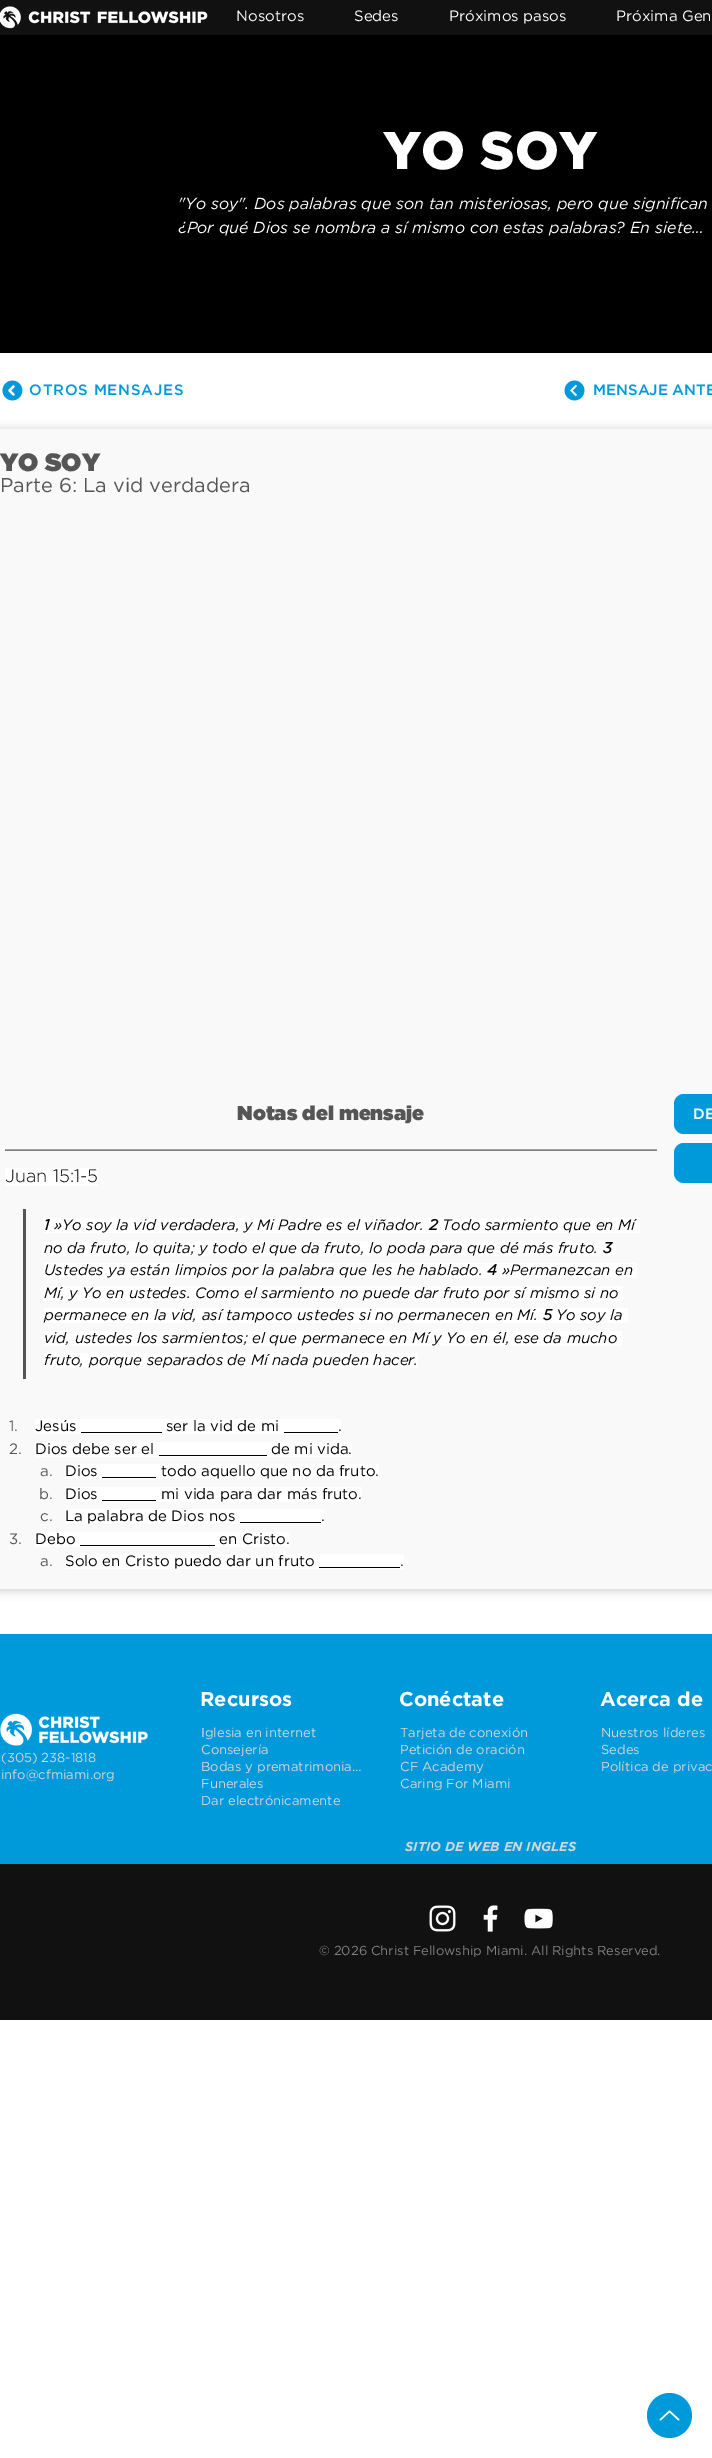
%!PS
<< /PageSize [712 2458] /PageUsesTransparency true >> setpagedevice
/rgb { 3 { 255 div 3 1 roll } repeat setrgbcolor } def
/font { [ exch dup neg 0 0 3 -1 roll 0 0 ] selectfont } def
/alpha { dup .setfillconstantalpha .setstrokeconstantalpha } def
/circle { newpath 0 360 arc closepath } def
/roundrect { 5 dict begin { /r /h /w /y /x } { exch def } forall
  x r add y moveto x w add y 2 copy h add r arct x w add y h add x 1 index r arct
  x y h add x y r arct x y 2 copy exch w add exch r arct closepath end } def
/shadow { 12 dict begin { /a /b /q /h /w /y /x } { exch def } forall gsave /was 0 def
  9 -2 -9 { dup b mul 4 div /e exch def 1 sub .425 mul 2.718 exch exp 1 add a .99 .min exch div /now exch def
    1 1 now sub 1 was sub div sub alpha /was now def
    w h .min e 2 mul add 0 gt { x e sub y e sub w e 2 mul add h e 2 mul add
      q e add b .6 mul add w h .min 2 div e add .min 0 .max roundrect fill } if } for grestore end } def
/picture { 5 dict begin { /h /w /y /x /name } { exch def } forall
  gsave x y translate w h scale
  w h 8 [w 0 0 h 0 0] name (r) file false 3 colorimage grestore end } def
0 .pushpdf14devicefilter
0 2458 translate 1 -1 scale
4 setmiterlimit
255 255 255 rgb
0 0 712 2458 rectfill
17 17 17 rgb
0 0 712 35 rectfill
(img/1.rgb) 0 6 208 23 picture
0 0 0 rgb
0 35 712 318 rectfill
(img/2.rgb) 2 380 21 21 picture
(img/3.rgb) 564 380 21 21 picture
-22 430 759 1160 10 5 0.22 shadow
249 249 249 rgb
0 429 712 1160 rectfill
85 85 85 rgb
5 1150 moveto 657 1150 lineto stroke
[
  [5 1168 93 18 255 255 255]
  [23 1209 3 170 85 85 85]
  [44 1218 596 15 255 255 255]
  [44 1241 221 15 255 255 255]
  [44 1263 593 15 255 255 255]
  [44 1286 579 15 255 255 255]
  [44 1308 584 15 255 255 255]
  [44 1331 578 15 255 255 255]
  [44 1353 374 15 255 255 255]
  [35 1419 306 15 255 255 255]
  [81 1432 81 1 0 0 0]
  [284 1432 54 1 0 0 0]
  [35 1442 317 15 255 255 255]
  [159 1455 108 1 0 0 0]
  [65 1464 314 15 255 255 255]
  [102 1477 54 1 0 0 0]
  [65 1487 297 15 255 255 255]
  [102 1500 54 1 0 0 0]
  [65 1509 259 15 255 255 255]
  [240 1522 81 1 0 0 0]
  [35 1532 255 15 255 255 255]
  [80 1545 135 1 0 0 0]
  [65 1554 339 15 255 255 255]
  [319 1567 81 1 0 0 0]
] { aload pop rgb rectfill } forall
0 154 218 rgb
674 1094 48 40 10 roundrect fill
674 1143 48 40 10 roundrect fill
0 1634 712 230 rectfill
(img/4.rgb) 0 1713 148 33 picture
17 17 17 rgb
0 1864 712 156 rectfill
(img/5.rgb) 429 1905 27 27 picture
(img/6.rgb) 483 1905 15 27 picture
(img/7.rgb) 524 1908 29 21 picture
0 154 218 rgb
669.5 2415.5 22.5 circle fill
(img/8.rgb) 659 2410 21 11 picture
/Gotham-Regular 15 font
255 255 255 rgb
[
  [(Nosotros) 236 21]
  [(Sedes) 354 21]
  [(Próximos pasos) 449 21]
  [(Próxima Gen) 616 21]
] { aload pop moveto show } forall
/Gotham-Black 53 font
383 169 moveto (YO SOY) show
/Gotham-Italic 16 font
178 209 moveto ("Yo soy". Dos palabras que son tan misteriosas, pero que significan) show
178 233 moveto (¿Por qué Dios se nombra a sí mismo con estas palabras? En siete…) show
/Gotham-Medium 15 font
0 154 218 rgb
29 395 moveto 0.75 0 (OTROS MENSAJES) ashow
593 395 moveto (MENSAJE ANTE) show
/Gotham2-Medium 25 font
85 85 85 rgb
0 471 moveto (YO SOY) show
/Gotham-Regular 20 font
0 492 moveto (Parte 6: La vid verdadera) show
/Gotham2-Medium 20 font
237 1120 moveto (Notas del mensaje) show
/Gotham-Light 18 font
0 0 0 rgb
5 1182 moveto (Juan 15:1-5) show
/Gotham-BoldItalic 15 font
44 1230 moveto (1) show
/Gotham-Italic 15 font
54 1230 moveto (»Yo soy la vid verdadera, y Mi Padre es el viñador.) show
/Gotham-BoldItalic 15 font
429 1230 moveto (2) show
/Gotham-Italic 15 font
442 1230 moveto (Todo sarmiento que en Mí) show
44 1253 moveto (no da fruto, lo quita; y todo el) show
255 255 255 rgb
265 1241 351 15 rectfill
0 0 0 rgb
269 1253 moveto (que da fruto, lo poda para que dé más fruto.) show
/Gotham-BoldItalic 15 font
603 1253 moveto (3) show
/Gotham-Italic 15 font
44 1275 moveto (Ustedes ya están limpios por la palabra que les he hablado.) show
/Gotham-BoldItalic 15 font
487 1275 moveto (4) show
/Gotham-Italic 15 font
[
  [(»Permanezcan en) 502 1275]
  [(Mí, y Yo en ustedes. Como el sarmiento no puede dar fruto por sí mismo si no) 44 1298]
  [(permanece en la vid, así tampoco ustedes si no permanecen en Mí.) 44 1320]
] { aload pop moveto show } forall
/Gotham-BoldItalic 15 font
543 1320 moveto (5) show
/Gotham-Italic 15 font
[
  [(Yo soy la) 556 1320]
  [(vid, ustedes los sarmientos; el que permanece en Mí y Yo en él, ese da mucho) 44 1343]
  [(fruto, porque separados de Mí nada pueden hacer.) 44 1365]
] { aload pop moveto show } forall
/Gotham-Regular 15 font
85 85 85 rgb
9 1431 moveto (1.) show
0 0 0 rgb
[
  [(Jesús) 35 1431]
  [(ser la vid de mi) 166 1431]
  [(.) 338 1431]
] { aload pop moveto show } forall
85 85 85 rgb
9 1454 moveto (2.) show
0 0 0 rgb
35 1454 moveto (Dios debe ser el) show
271 1454 moveto (de mi vida.) show
85 85 85 rgb
40 1476 moveto (a.) show
0 0 0 rgb
65 1476 moveto (Dios) show
161 1476 moveto (todo aquello que no da fruto.) show
85 85 85 rgb
39 1499 moveto (b.) show
0 0 0 rgb
65 1499 moveto (Dios) show
161 1499 moveto (mi vida para dar más fruto.) show
85 85 85 rgb
40 1521 moveto (c.) show
0 0 0 rgb
65 1521 moveto (La palabra de Dios nos) show
321 1521 moveto (.) show
85 85 85 rgb
9 1544 moveto (3.) show
0 0 0 rgb
35 1544 moveto (Debo) show
219 1544 moveto (en Cristo.) show
85 85 85 rgb
40 1566 moveto (a.) show
0 0 0 rgb
65 1566 moveto (Solo en Cristo puedo dar un fruto) show
400 1566 moveto (.) show
/Gotham-Medium 15 font
255 255 255 rgb
693 1119 moveto (DE) show
/Gotham-Bold 20 font
[
  [(Recursos) 200 1706]
  [(Conéctate) 399 1706]
  [(Acerca de) 600 1706]
] { aload pop moveto show } forall
/Gotham-Regular 13 font
213 213 213 rgb
[
  [(Iglesia en internet) 201 1737]
  [(Consejería) 201 1754]
  [(Bodas y prematrimonia…) 201 1771]
  [(Funerales) 201 1788]
  [(Dar electrónicamente) 201 1805]
  [(Tarjeta de conexión) 400 1737]
  [(Petición de oración) 400 1754]
  [(CF Academy) 400 1771]
  [(Caring For Miami) 400 1788]
  [(Nuestros líderes) 601 1737]
  [(Sedes) 601 1754]
  [(Política de privac) 601 1771]
  [(\(305\) 238-1818) 1 1762]
  [(info@cfmiami.org) 1 1779]
] { aload pop moveto show } forall
/Gotham2-BoldItalic 13 font
405 1851 moveto (SITIO DE WEB EN INGLES) show
/Gotham-Regular 13 font
128 128 128 rgb
319 1955 moveto (© 2026 Christ Fellowship Miami. All Rights Reserved.) show
.poppdf14devicefilter showpage
